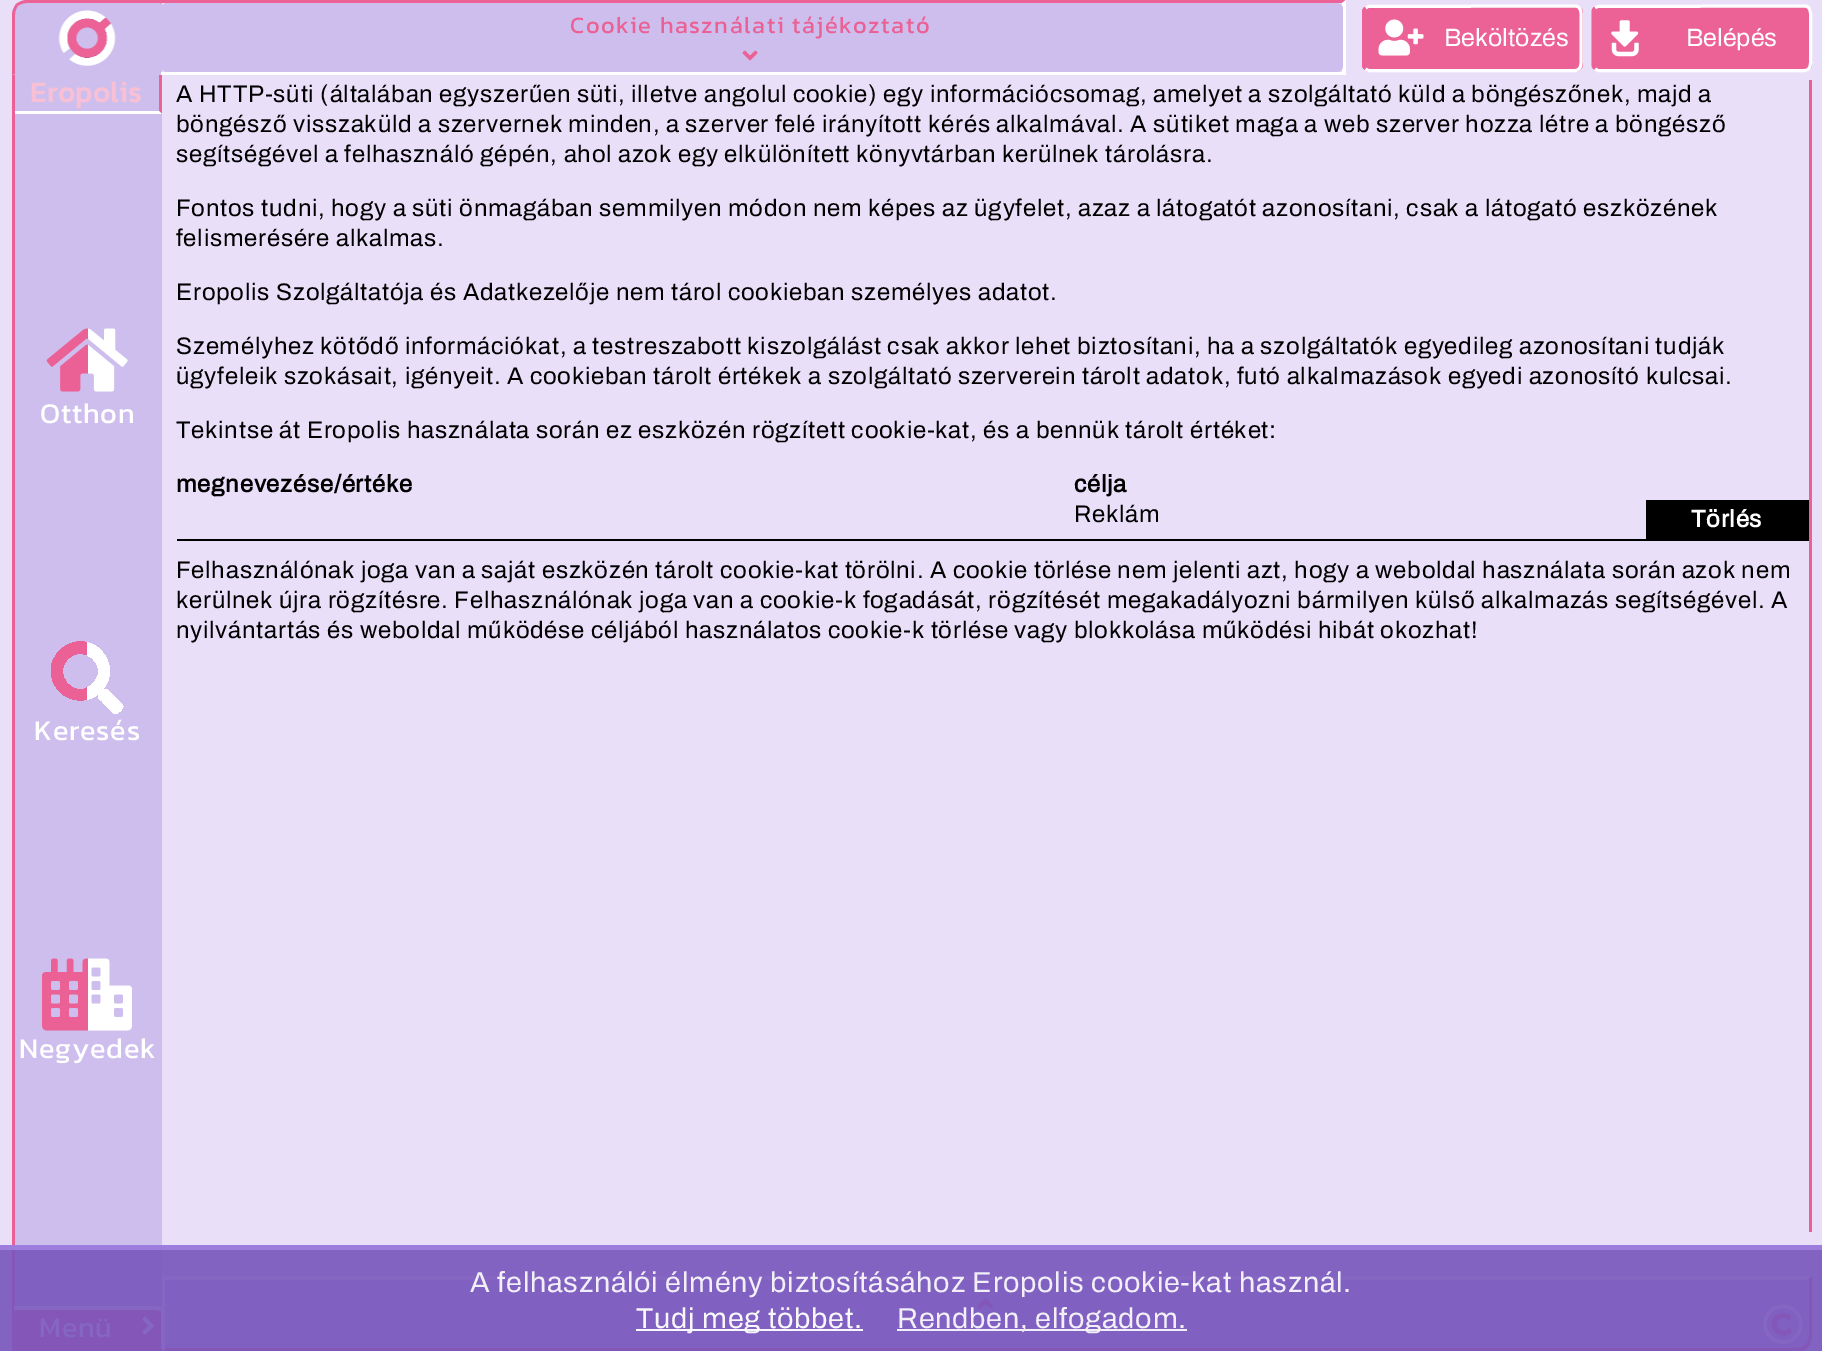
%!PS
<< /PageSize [1822 1351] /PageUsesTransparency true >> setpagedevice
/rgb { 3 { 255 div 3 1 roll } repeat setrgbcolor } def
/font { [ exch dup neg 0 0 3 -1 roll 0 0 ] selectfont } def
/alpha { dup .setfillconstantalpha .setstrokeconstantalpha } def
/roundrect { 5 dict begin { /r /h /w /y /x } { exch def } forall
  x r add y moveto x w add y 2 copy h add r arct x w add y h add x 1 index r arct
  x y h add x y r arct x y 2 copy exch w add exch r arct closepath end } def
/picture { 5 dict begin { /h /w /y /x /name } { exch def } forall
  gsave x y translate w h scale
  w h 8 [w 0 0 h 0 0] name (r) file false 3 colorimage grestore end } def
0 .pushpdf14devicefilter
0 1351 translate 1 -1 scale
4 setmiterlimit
234 223 249 rgb
0 0 1822 1351 rectfill
131 99 193 rgb
0 1250 1822 101 rectfill
157 125 221 rgb
0 1245 1822 5 rectfill
206 190 237 rgb
27 0 moveto 162 0 lineto 162 75 lineto 12 75 lineto 12 15 lineto 12 6.5 18.5 0 27 0 curveto closepath fill
(img/1.rgb) 58 10 58 56 picture
236 97 150 rgb
27 0 moveto 23 0 19 2 16 4 curveto 18 6 lineto 20 4 24 3 27 3 curveto 160 3 lineto 160 4 lineto 162 0 lineto closepath fill
12 75 moveto 15 74 lineto 15 15 lineto 15 12 16 8 18 6 curveto 16 4 lineto 14 7 12 11 12 15 curveto closepath fill
160 0 moveto 1346 0 lineto 1342 3 lineto 160 3 lineto closepath fill
255 255 255 rgb
1346 0 moveto 1346 75 lineto 1342 72 lineto 1342 3 lineto closepath fill
161 72 1185 3 rectfill
206 190 237 rgb
161 3 1182 69 6 roundrect fill
(img/2.rgb) 742 50 16 11 picture
236 97 150 rgb
1362 5 221 67 8 roundrect fill
255 255 255 rgb
3 setlinewidth
1365.5 8 moveto 1368 6.5 lineto 1575 6 lineto 1582.5 6 1581 16 1581 21 curveto 1581 56 lineto 1581 60.5 1582.5 70.5 1575 70.5 curveto 1369.5 70.5 lineto 1368 70.5 1366.5 70 1365.5 68.5 curveto stroke
236 97 150 rgb
1365.5 68.5 moveto 1364 67.5 1363.5 66 1363.5 64.5 curveto 1363.5 12 lineto 1363.5 10.5 1364 9 1365.5 8 curveto stroke
(img/3.rgb) 1378 19 46 37 picture
1592 5 220 67 8 roundrect fill
255 255 255 rgb
1595 8 moveto 1597.5 6.5 lineto 1804.5 6 lineto 1812 6 1810.5 16 1810.5 21 curveto 1810.5 56 lineto 1810.5 60.5 1812 70.5 1804.5 70.5 curveto 1599 70.5 lineto 1597.5 70.5 1596 70 1595 68.5 curveto stroke
236 97 150 rgb
1595 68.5 moveto 1593.5 67.5 1593 66 1593 64.5 curveto 1593 12 lineto 1593 10.5 1593.5 9 1595 8 curveto stroke
(img/4.rgb) 1611 20 28 37 picture
[
  [15 75 147 1170 206 190 237]
  [15 1250 147 59 128 96 192]
  [12 75 3 1170 235 97 149]
  [12 1245 3 106 131 86 183]
  [12 1245 3 5 157 124 220]
] { aload pop rgb rectfill } forall
236 97 150 rgb
162 75 moveto 162 114 lineto 159 111 lineto 159 75 lineto closepath fill
255 255 255 rgb
162 114 moveto 15 114 lineto 15 111 lineto 159 111 lineto closepath fill
(img/5.rgb) 46 328 82 64 picture
gsave 122 704 moveto 125 707 121 710 119 712 curveto 116 715 114 714 111 711 curveto 102 701 lineto 99 698 98 698 98 694 curveto 85 705 65 701 56 687 curveto 51 680 50 671 52 663 curveto 54 656 59 651 64 647 curveto 91 628 124 663 103 689 curveto 109 689 108 691 113 695 curveto closepath 68 684 moveto 84 701 110 675 93 659 curveto 76 642 51 667 68 684 curveto closepath clip newpath
<< /ShadingType 2 /ColorSpace /DeviceRGB /Coords [124 677 51 677] /Extend [true true] /Function << /FunctionType 3 /Domain [0 1] /Functions [<< /FunctionType 2 /Domain [0 1] /C0 [1 1 1] /C1 [1 1 1] /N 1 >> << /FunctionType 2 /Domain [0 1] /C0 [0.922 0.38 0.584] /C1 [0.922 0.38 0.584] /N 1 >>] /Bounds [0.5] /Encode [0 1 0 1] >> >> shfill grestore
(img/6.rgb) 42 958 90 73 picture
128 96 192 rgb
162 1277 moveto 1812 1277 lineto 1812 1337 lineto 1812 1345.5 1805.5 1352 1797 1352 curveto 162 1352 lineto closepath fill
133 102 194 rgb
162 1276 moveto 166 1280 lineto 1808 1280 lineto 1812 1276 lineto closepath fill
131 86 183 rgb
1812 1276 moveto 1808 1280 lineto 1809 1280 lineto 1809 1336 lineto 1809 1340 1808 1343 1805 1345 curveto 1808 1347 lineto 1810 1344 1812 1340 1812 1336 curveto closepath fill
1801 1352 moveto 162 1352 lineto 166 1348 lineto 1797 1348 lineto 1800 1348 1803 1347 1805 1345 curveto 1808 1347 lineto 1806 1349 1803 1351 1801 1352 curveto closepath fill
133 102 194 rgb
165 1280 moveto 166 1280 lineto 162 1276 lineto 162 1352 lineto 166 1348 lineto 165 1348 lineto closepath fill
131 86 183 rgb
14 1307 moveto 156 1307 lineto 160.5 1307 164 1310.5 164 1315 curveto 164 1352 lineto 14 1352 lineto closepath fill
133 102 194 rgb
14 1310 moveto 14 1306 lineto 159 1306 lineto 162 1308 lineto 159 1311 lineto 156 1310 lineto closepath fill
160 1348 moveto 160 1314 lineto 160 1313 160 1312 159 1311 curveto 162 1308 lineto 164 1311 lineto 164 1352 lineto closepath fill
131 86 183 rgb
164 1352 moveto 160 1348 lineto 14 1348 lineto 14 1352 lineto closepath fill
159 1311 2 38 rectfill
(img/7.rgb) 142 1316 12 19 picture
[
  [1809 80 3 1152 235 97 149]
  [177 539 1632 2 0 0 0]
  [1646 500 163 39 0 0 0]
] { aload pop rgb rectfill } forall
(img/8.rgb) 978 1298 15 11 picture
(img/9.rgb) 1763 1304 40 40 picture
248 247 251 rgb
636 1329 227 2 rectfill
0.9 alpha
253 253 253 rgb
897 1329 290 2 rectfill
/Kanit-Regular 23.6 font
1 alpha
235 97 149 rgb
570 33 moveto 1.5 0 (Cookie használati tájékoztató) ashow
/Archivo-Regular 25 font
255 255 255 rgb
1444 46 moveto (Beköltözés) show
1686 46 moveto (Belépés) show
/Kanit-Bold 28.8 font
247 192 213 rgb
30 102 moveto 0.75 0 (Eropolis) ashow
/Kanit-Regular 28.8 font
255 255 255 rgb
40 423 moveto 0.75 0 (Otthon) ashow
34 740 moveto 0.75 0 (Keresés) ashow
19 1058 moveto 0.75 0 (Negyedek) ashow
133 102 194 rgb
39 1337 moveto 0.75 0 (Menü) ashow
/Archivo-Regular 24 font
0 0 0 rgb
176 102 moveto 0.75 0 (A HTTP-süti \(általában egyszerűen süti, illetve angolul cookie\) egy információcsomag, amelyet a szolgáltató küld a böngészőnek, majd a) ashow
176 132 moveto 0.75 0 (böngésző visszaküld a szervernek minden, a szerver felé irányított kérés alkalmával. A sütiket maga a web szerver hozza létre a böngésző) ashow
176 162 moveto 0.75 0 (segítségével a felhasználó gépén, ahol azok egy elkülönített könyvtárban kerülnek tárolásra.) ashow
176 216 moveto 0.75 0 (Fontos tudni, hogy a süti önmagában semmilyen módon nem képes az ügyfelet, azaz a látogatót azonosítani, csak a látogató eszközének) ashow
176 246 moveto 0.75 0 (felismerésére alkalmas.) ashow
176 300 moveto 0.75 0 (Eropolis Szolgáltatója és Adatkezelője nem tárol cookieban személyes adatot.) ashow
176 354 moveto 0.75 0 (Személyhez kötődő információkat, a testreszabott kiszolgálást csak akkor lehet biztosítani, ha a szolgáltatók egyedileg azonosítani tudják) ashow
176 384 moveto 0.75 0 (ügyfeleik szokásait, igényeit. A cookieban tárolt értékek a szolgáltató szerverein tárolt adatok, futó alkalmazások egyedi azonosító kulcsai.) ashow
176 438 moveto 0.75 0 (Tekintse át Eropolis használata során ez eszközén rögzített cookie-kat, és a bennük tárolt értéket:) ashow
/Archivo-Bold 24 font
176 492 moveto 0.75 0 (megnevezése/értéke) ashow
1074 492 moveto 0.75 0 (célja) ashow
/Archivo-Regular 24 font
1074 522 moveto 0.75 0 (Reklám) ashow
/Archivo-Bold 24 font
255 255 255 rgb
1691 527 moveto 0.75 0 (Törlés) ashow
/Archivo-Regular 24 font
0 0 0 rgb
176 578 moveto 0.75 0 (Felhasználónak joga van a saját eszközén tárolt cookie-kat törölni. A cookie törlése nem jelenti azt, hogy a weboldal használata során azok nem) ashow
176 608 moveto 0.75 0 (kerülnek újra rögzítésre. Felhasználónak joga van a cookie-k fogadását, rögzítését megakadályozni bármilyen külső alkalmazás segítségével. A) ashow
176 638 moveto 0.75 0 (nyilvántartás és weboldal működése céljából használatos cookie-k törlése vagy blokkolása működési hibát okozhat!) ashow
/Archivo-Regular 28.8 font
242 239 249 rgb
470 1292 moveto 0.75 0 (A felhasználói élmény biztosításához Eropolis cookie-kat használ.) ashow
248 247 251 rgb
636 1328 moveto 0.75 0 (Tudj meg többet.) ashow
242 239 249 rgb
897 1328 moveto 0.75 0 (Rendben, elfogadom.) ashow
.poppdf14devicefilter showpage
